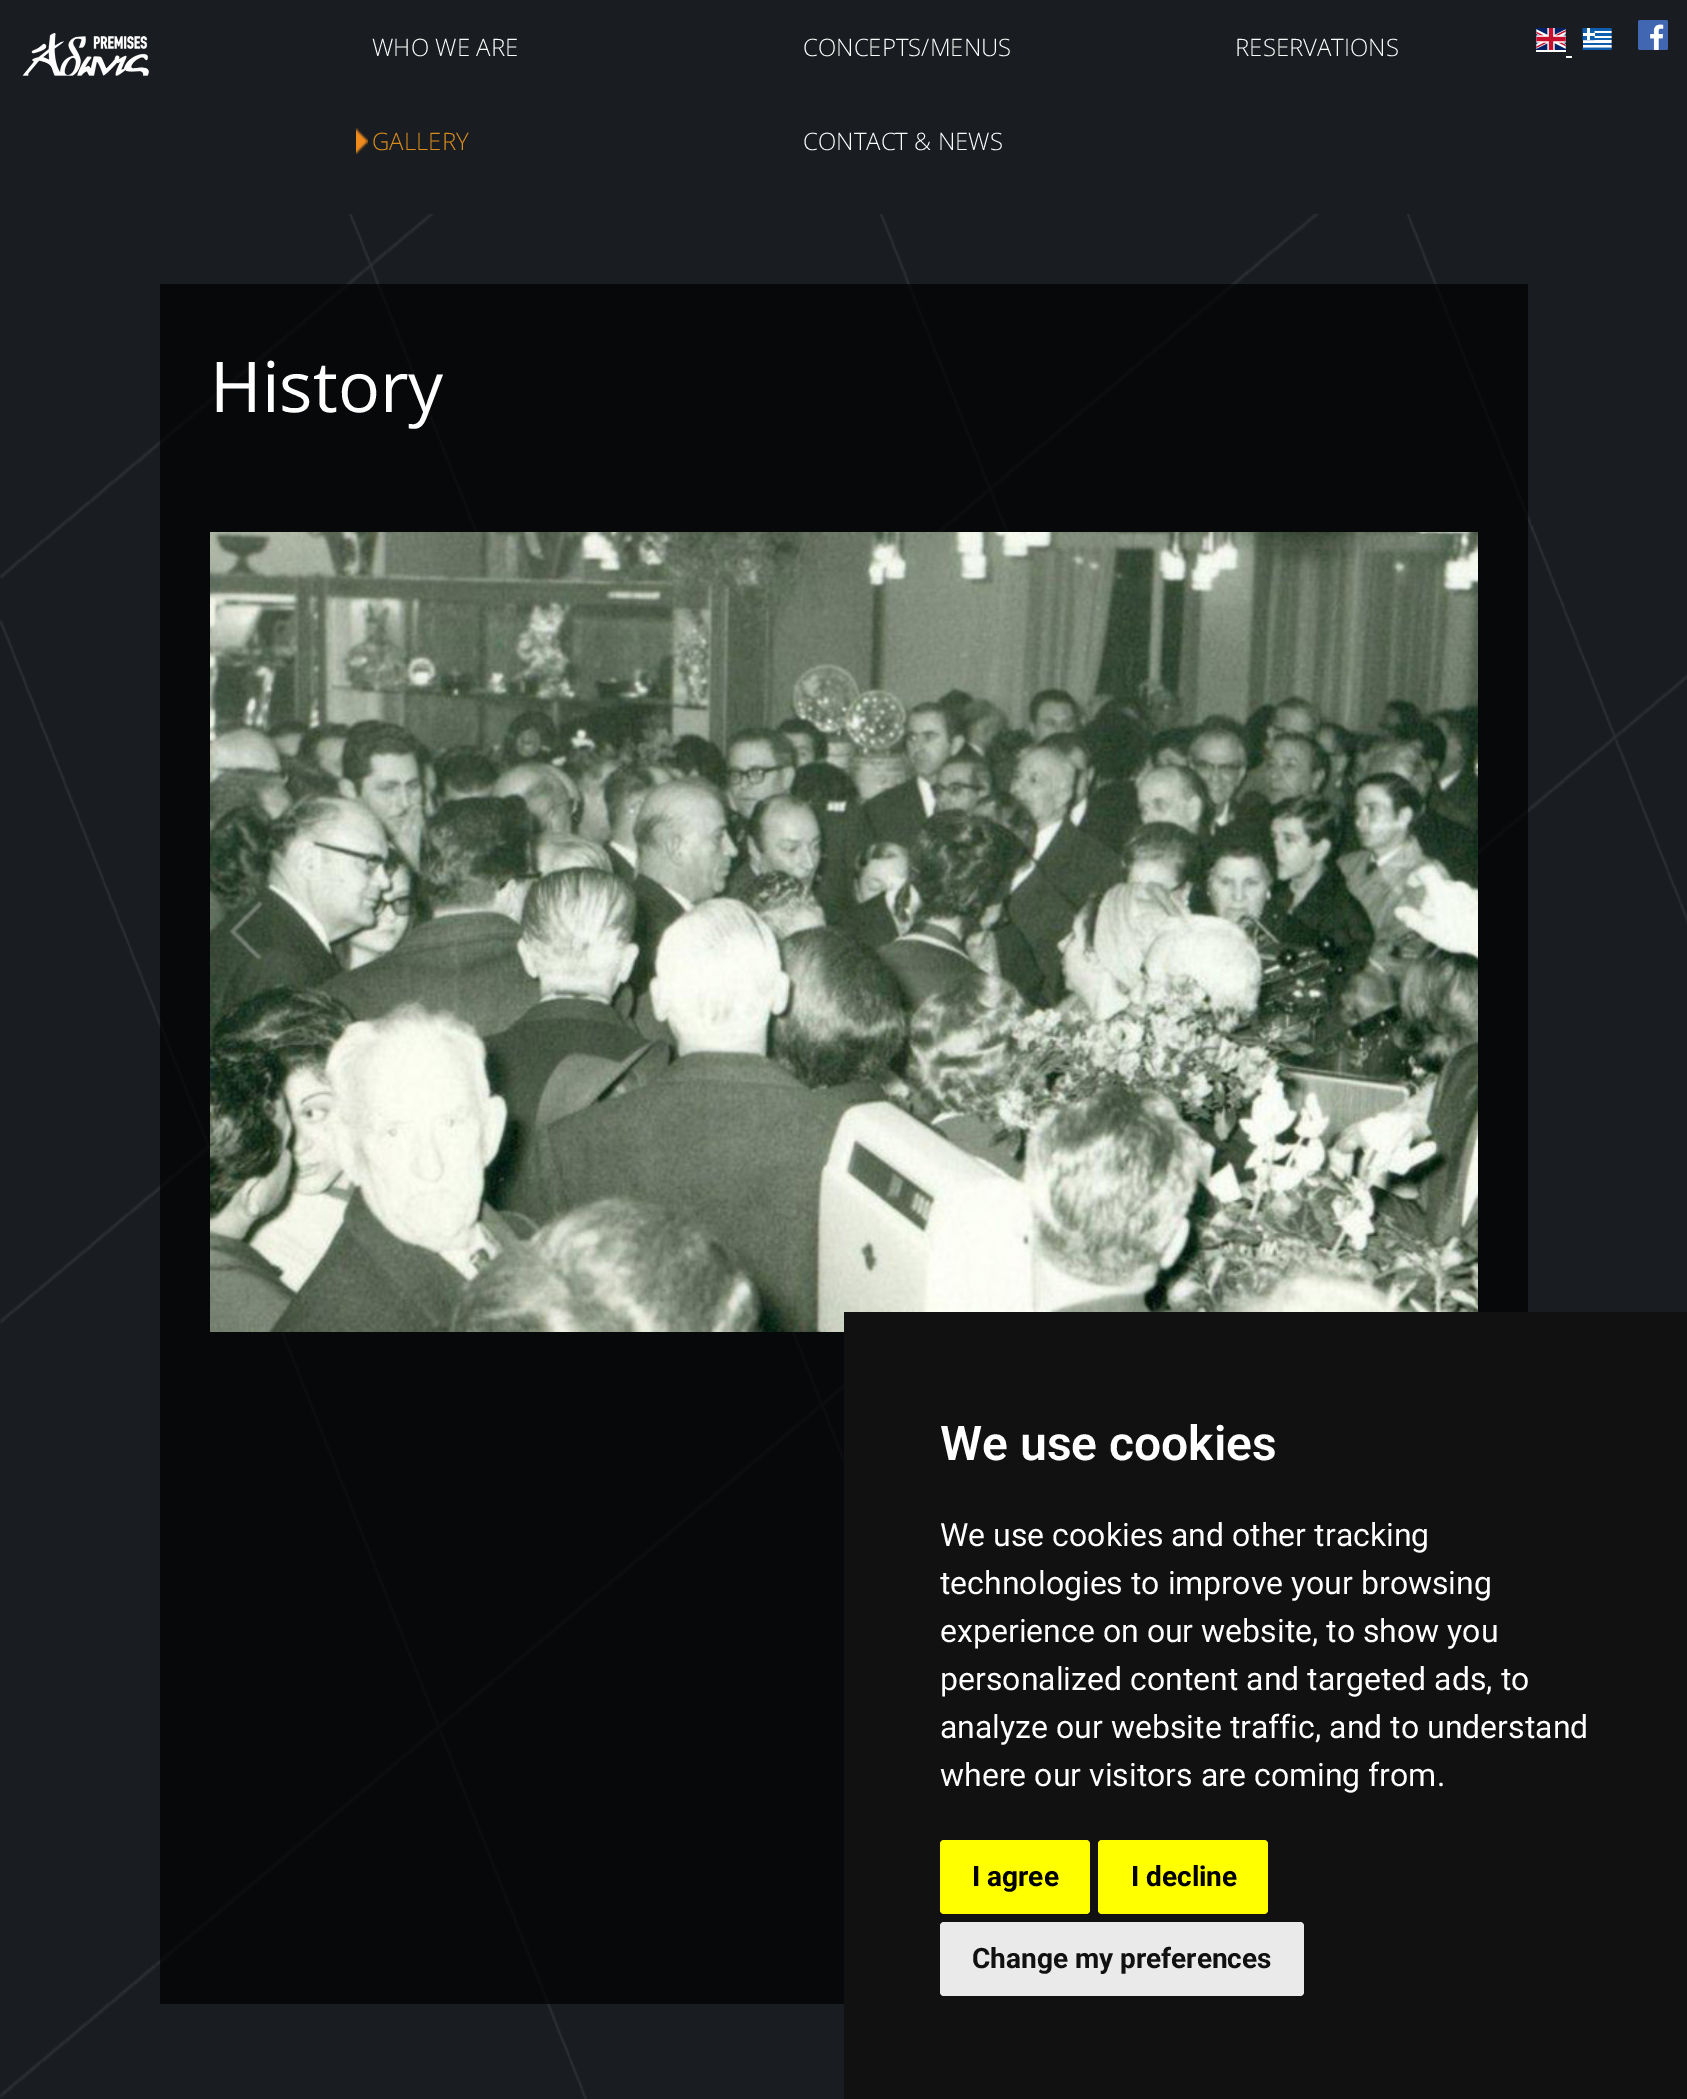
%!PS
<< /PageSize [1687 2099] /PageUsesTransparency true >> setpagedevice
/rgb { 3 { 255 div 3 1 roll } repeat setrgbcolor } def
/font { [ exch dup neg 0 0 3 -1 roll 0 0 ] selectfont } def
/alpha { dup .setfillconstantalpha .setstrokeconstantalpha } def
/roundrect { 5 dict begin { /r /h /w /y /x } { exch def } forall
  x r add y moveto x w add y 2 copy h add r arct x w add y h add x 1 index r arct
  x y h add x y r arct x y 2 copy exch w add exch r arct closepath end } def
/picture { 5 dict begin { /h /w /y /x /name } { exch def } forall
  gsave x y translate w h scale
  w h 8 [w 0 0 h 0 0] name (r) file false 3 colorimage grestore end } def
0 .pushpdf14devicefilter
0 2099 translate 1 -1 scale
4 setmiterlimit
25 28 33 rgb
0 0 1687 2099 rectfill
(img/1.rgb) 22 32 127 44 picture
(img/2.rgb) 356 128 12 26 picture
(img/3.rgb) 1536 28 30 22 picture
(img/4.rgb) 1582 28 30 22 picture
(img/5.rgb) 1638 20 30 30 picture
255 255 255 rgb
1536 50 30 2 rectfill
1566 56 6 2 rectfill
(img/6.rgb) 0 214 1687 1885 picture
0.7 alpha
0 0 0 rgb
160 284 1368 1720 rectfill
1 alpha
(img/7.rgb) 210 532 1268 800 picture
(img/8.rgb) 230 901 33 60 picture
(img/9.rgb) 1426 902 30 59 picture
17 17 17 rgb
844 1312 843 787 rectfill
255 255 0 rgb
940 1840 150 74 4 roundrect fill
1098 1840 170 74 4 roundrect fill
234 234 234 rgb
940 1922 364 74 4 roundrect fill
/OpenSans-Light 24 font
255 255 255 rgb
[
  [(WHO WE ARE) 372 56]
  [(CONCEPTS/MENUS) 803 56]
  [(RESERVATIONS) 1235 56]
] { aload pop moveto show } forall
218 141 27 rgb
372 150 moveto (GALLERY) show
255 255 255 rgb
803 150 moveto (CONTACT & NEWS) show
/OpenSans-Regular 70 font
210 412 moveto (History) show
/Roboto-SemiBold 48 font
940 1460 moveto (We use cookies) show
/Roboto-Regular 32 font
[
  [(We use cookies and other tracking) 940 1546]
  [(technologies to improve your browsing) 940 1594]
  [(experience on our website, to show you) 940 1642]
  [(personalized content and targeted ads, to) 940 1690]
  [(analyze our website traffic, and to understand) 940 1738]
  [(where our visitors are coming from.) 940 1786]
] { aload pop moveto show } forall
/Roboto-Bold 28 font
0 0 0 rgb
972 1886 moveto (I agree) show
1131 1886 moveto (I decline) show
17 17 17 rgb
972 1968 moveto (Change my preferences) show
.poppdf14devicefilter showpage
